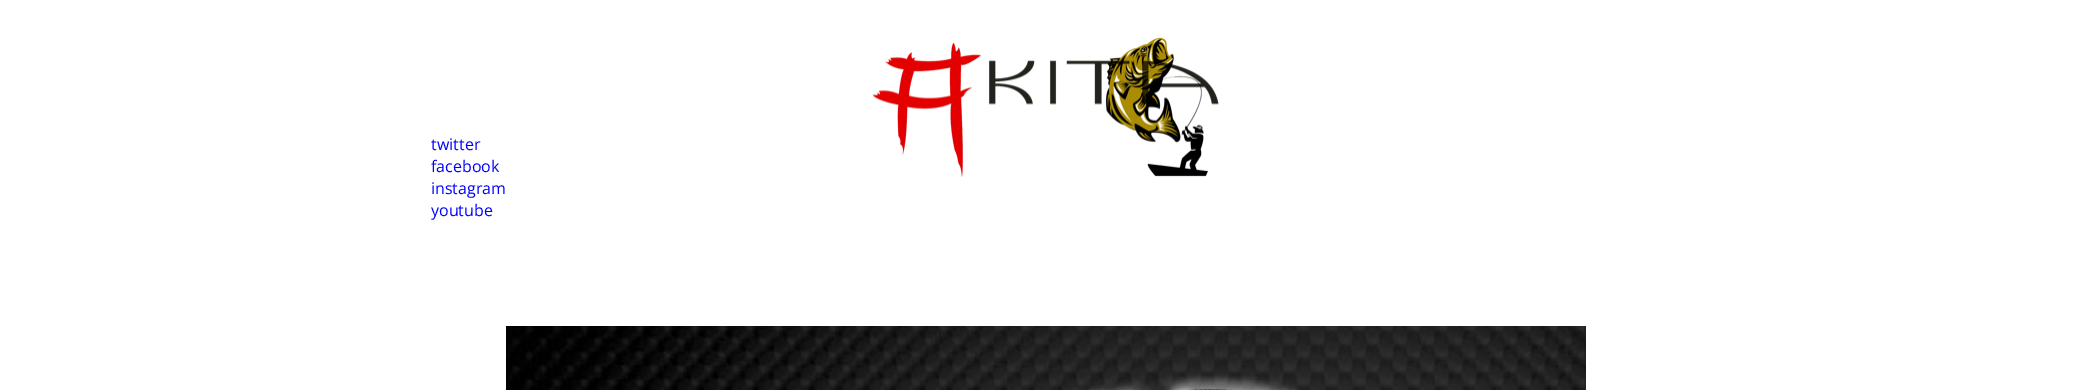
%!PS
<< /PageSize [2097 390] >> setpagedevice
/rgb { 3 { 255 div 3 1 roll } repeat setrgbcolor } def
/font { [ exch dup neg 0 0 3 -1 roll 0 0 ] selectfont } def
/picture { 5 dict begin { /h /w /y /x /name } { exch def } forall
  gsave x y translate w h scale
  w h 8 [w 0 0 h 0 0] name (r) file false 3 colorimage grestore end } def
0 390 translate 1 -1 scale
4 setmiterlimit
255 255 255 rgb
0 0 2097 390 rectfill
(img/1.rgb) 872 37 347 140 picture
(img/2.rgb) 506 326 1080 64 picture
/OpenSans-Regular 16 font
0 0 255 rgb
[
  [(twitter) 431 150]
  [(facebook) 431 172]
  [(instagram) 431 194]
  [(youtube) 431 216]
] { aload pop moveto show } forall
showpage
